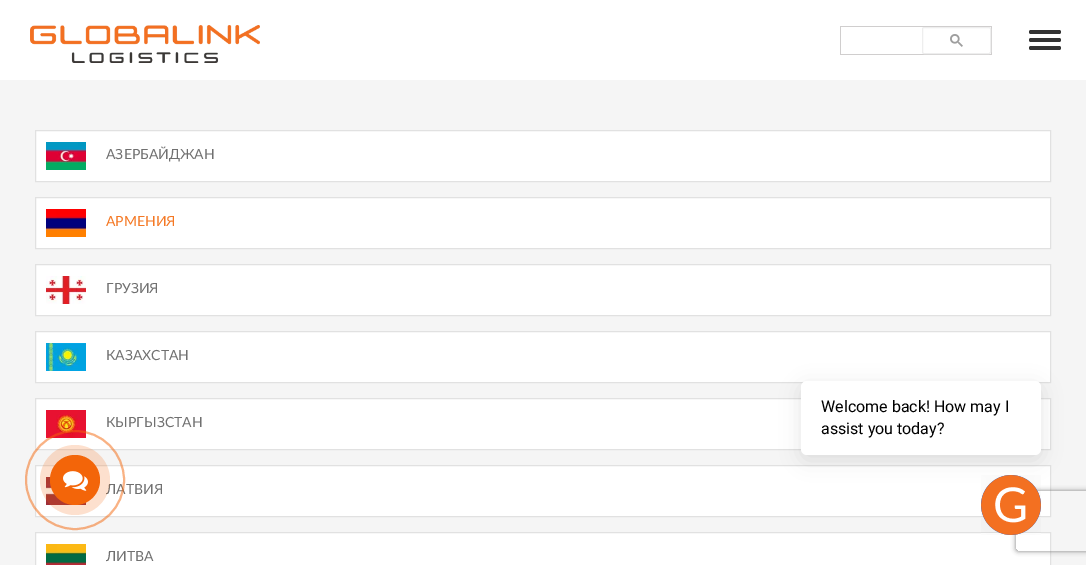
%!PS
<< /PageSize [1086 565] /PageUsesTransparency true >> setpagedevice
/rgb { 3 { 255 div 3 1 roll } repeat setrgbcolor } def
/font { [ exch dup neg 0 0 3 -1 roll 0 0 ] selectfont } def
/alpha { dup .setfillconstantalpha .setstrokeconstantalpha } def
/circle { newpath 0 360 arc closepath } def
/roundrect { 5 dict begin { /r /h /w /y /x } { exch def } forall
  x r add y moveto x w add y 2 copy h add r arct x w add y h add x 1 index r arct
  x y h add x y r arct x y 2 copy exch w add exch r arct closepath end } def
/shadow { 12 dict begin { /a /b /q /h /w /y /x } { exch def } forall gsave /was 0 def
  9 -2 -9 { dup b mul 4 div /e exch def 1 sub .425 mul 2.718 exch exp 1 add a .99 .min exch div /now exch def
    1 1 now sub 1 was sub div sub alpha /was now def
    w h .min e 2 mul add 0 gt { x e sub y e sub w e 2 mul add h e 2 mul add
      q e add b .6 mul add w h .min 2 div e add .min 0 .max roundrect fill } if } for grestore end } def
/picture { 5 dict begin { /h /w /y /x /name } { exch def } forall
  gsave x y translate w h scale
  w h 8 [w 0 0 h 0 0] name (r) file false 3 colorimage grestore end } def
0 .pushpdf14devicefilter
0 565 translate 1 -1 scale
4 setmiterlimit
255 255 255 rgb
0 0 1086 565 rectfill
(img/1.rgb) 30 25 230 38 picture
[
  [840 26 152 1 208 206 206]
  [991 26 1 29 208 206 206]
  [840 54 152 1 208 206 206]
  [840 26 1 29 208 206 206]
] { aload pop rgb rectfill } forall
238 238 238 rgb
922.5 27.5 68 26 1.5 roundrect stroke
(img/2.rgb) 950 34 13 13 picture
51 51 51 rgb
1029 30 32 4 2 roundrect fill
1029 38 32 4 2 roundrect fill
1029 46 32 4 2 roundrect fill
245 245 245 rgb
0 80 1086 485 rectfill
255 255 255 rgb
35.5 130.5 moveto 1050.5 130.5 lineto 1050.5 181.5 lineto 35.5 181.5 lineto closepath gsave fill grestore
225 225 225 rgb
stroke
(img/4.rgb) 46 142 40 28 picture
255 255 255 rgb
35.5 197.5 moveto 1050.5 197.5 lineto 1050.5 248.5 lineto 35.5 248.5 lineto closepath gsave fill grestore
225 225 225 rgb
stroke
(img/5.rgb) 46 209 40 28 picture
255 255 255 rgb
35.5 264.5 moveto 1050.5 264.5 lineto 1050.5 315.5 lineto 35.5 315.5 lineto closepath gsave fill grestore
225 225 225 rgb
stroke
(img/6.rgb) 46 276 40 28 picture
255 255 255 rgb
35.5 331.5 moveto 1050.5 331.5 lineto 1050.5 382.5 lineto 35.5 382.5 lineto closepath gsave fill grestore
225 225 225 rgb
stroke
(img/7.rgb) 46 343 40 28 picture
255 255 255 rgb
35.5 398.5 moveto 1050.5 398.5 lineto 1050.5 449.5 lineto 35.5 449.5 lineto closepath gsave fill grestore
225 225 225 rgb
stroke
(img/8.rgb) 46 410 40 28 picture
255 255 255 rgb
35.5 465.5 moveto 1050.5 465.5 lineto 1050.5 516.5 lineto 35.5 516.5 lineto closepath gsave fill grestore
225 225 225 rgb
stroke
(img/9.rgb) 46 477 40 28 picture
255 255 255 rgb
35.5 532.5 moveto 1050.5 532.5 lineto 1050.5 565.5 lineto 35.5 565.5 lineto closepath gsave fill grestore
225 225 225 rgb
stroke
(img/10.rgb) 46 544 40 21 picture
0 0 0 rgb
801 386 240 74 6 10 0.1 shadow
255 255 255 rgb
801 381 240 74 6 roundrect fill
gsave
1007 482 moveto 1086 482 lineto 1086 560 lineto 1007 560 lineto closepath 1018 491 moveto 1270 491 lineto 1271 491 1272 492 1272 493 curveto 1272 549 lineto 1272 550 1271 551 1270 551 curveto 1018 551 lineto 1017 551 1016 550 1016 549 curveto 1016 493 lineto 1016 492 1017 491 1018 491 curveto closepath eoclip newpath
128 128 128 rgb
1016 491 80 60 2 2.5 1 shadow
grestore
0 102 255 rgb
1011 505 30 circle fill
(img/11.rgb) 981 475 60 60 picture
/Lato-Regular 14 font
112 112 112 rgb
106 159 moveto (АЗЕРБАЙДЖАН) show
244 120 36 rgb
106 226 moveto (АРМЕНИЯ) show
112 112 112 rgb
[
  [(ГРУЗИЯ) 106 293]
  [(КАЗАХСТАН) 106 360]
  [(КЫРГЫЗСТАН) 106 427]
  [(ЛАТВИЯ) 106 494]
] { aload pop moveto show } forall
0.5 alpha
243 101 9 rgb
2 setlinewidth
75 480 49 circle stroke
0.2 alpha
75 480 35 circle fill
1 alpha
75 480 25 circle fill
(img/3.rgb) 63 471 25 20 picture
112 112 112 rgb
106 561 moveto (ЛИТВА) show
/Roboto-Regular 16 font
0 0 0 rgb
821 412 moveto (Welcome back! How may I) show
821 434 moveto (assist you today?) show
.poppdf14devicefilter showpage
